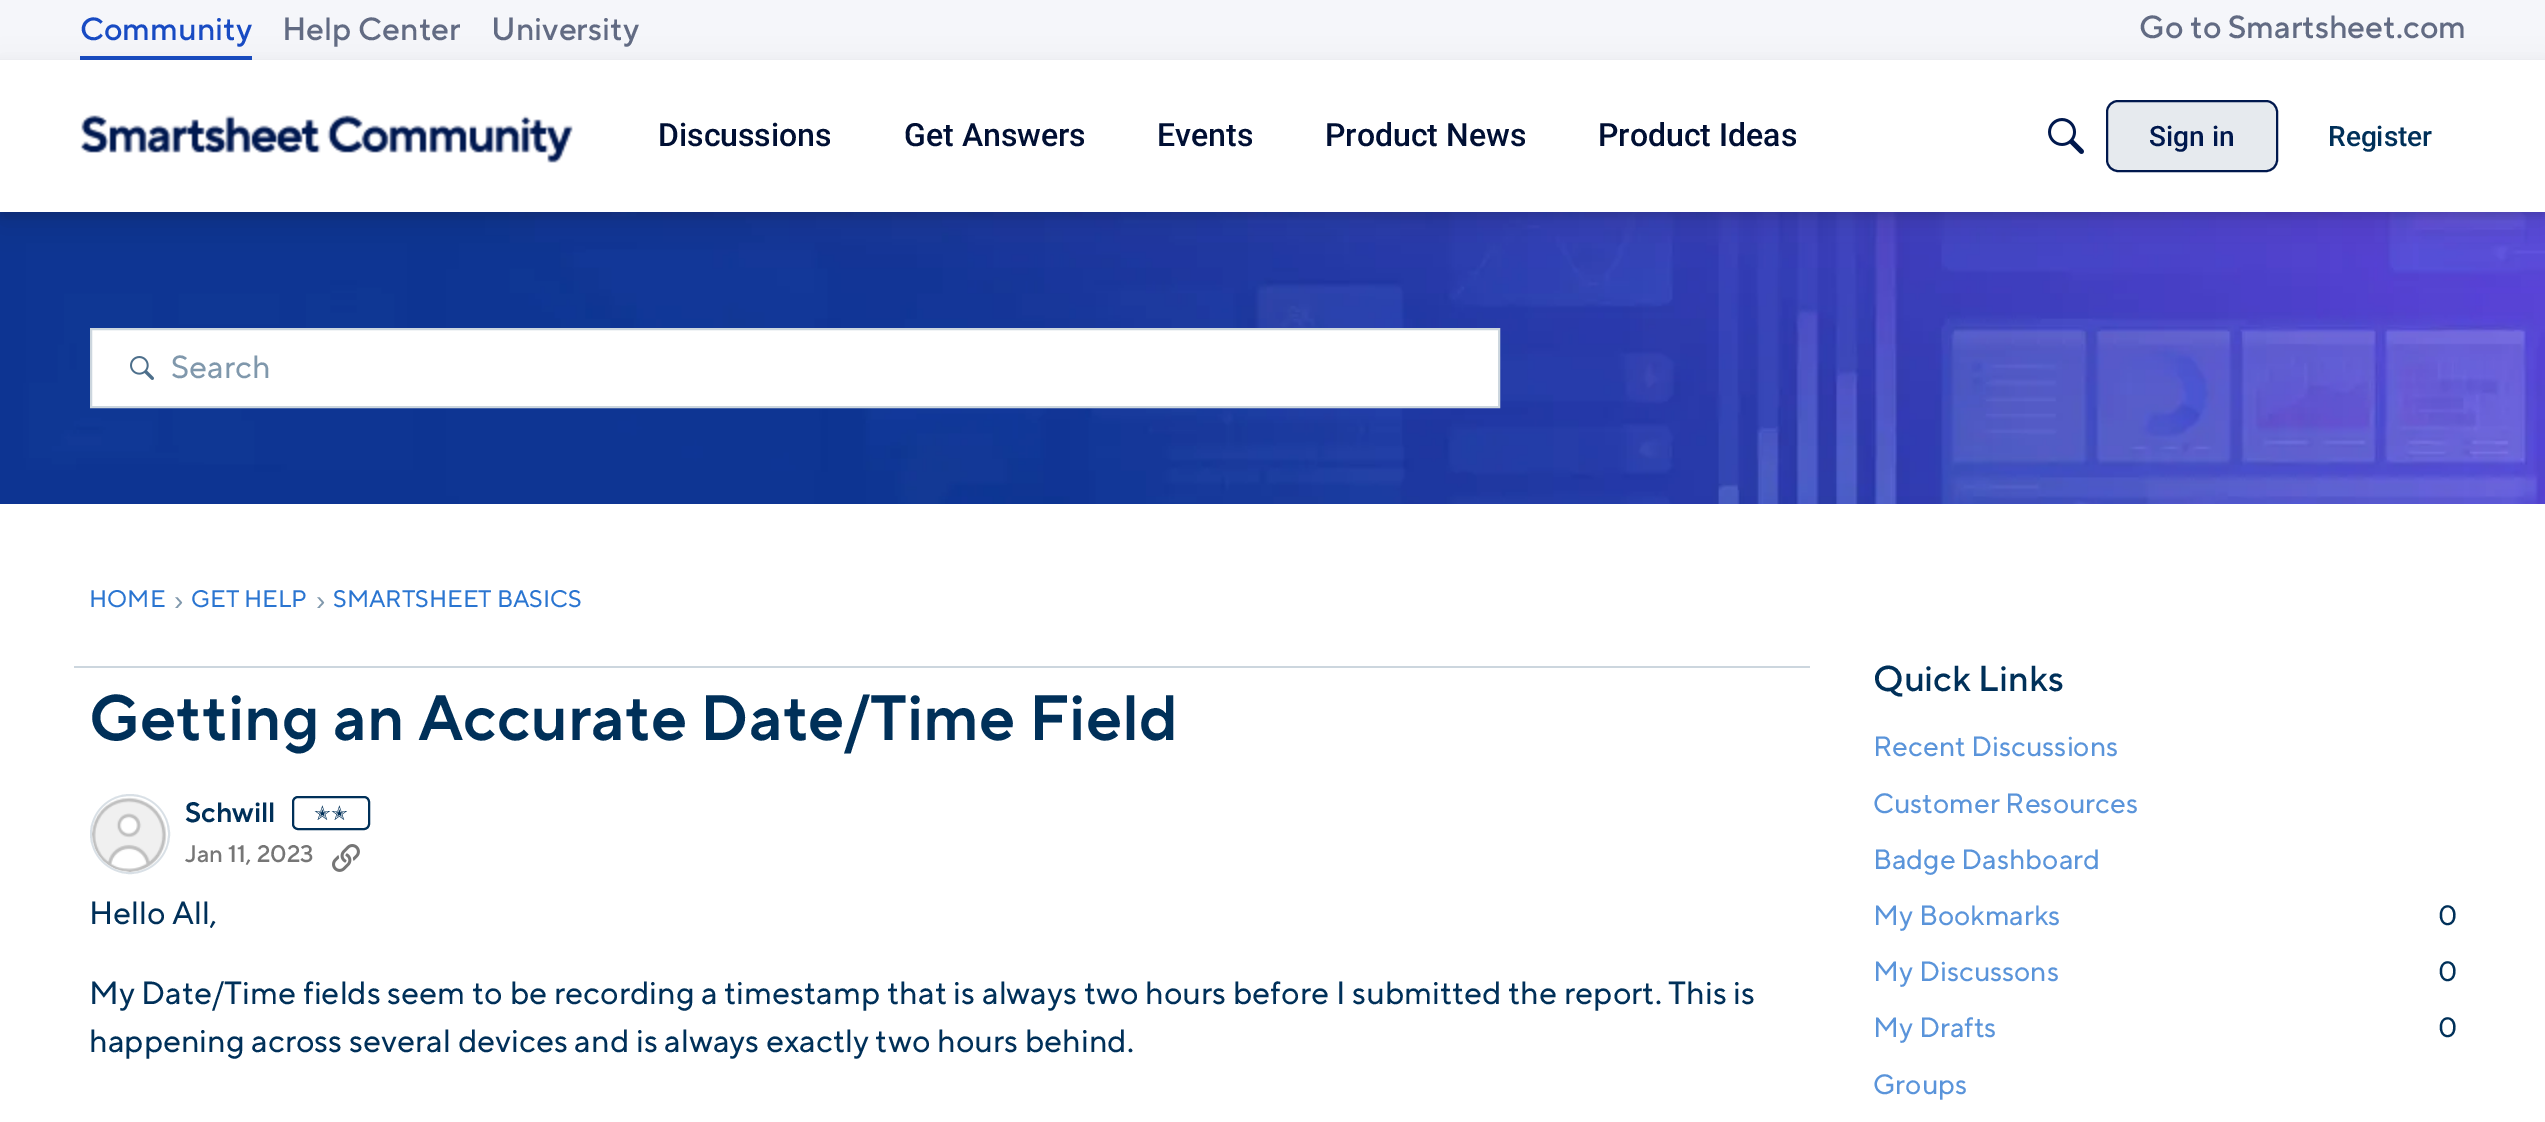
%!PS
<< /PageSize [2545 1122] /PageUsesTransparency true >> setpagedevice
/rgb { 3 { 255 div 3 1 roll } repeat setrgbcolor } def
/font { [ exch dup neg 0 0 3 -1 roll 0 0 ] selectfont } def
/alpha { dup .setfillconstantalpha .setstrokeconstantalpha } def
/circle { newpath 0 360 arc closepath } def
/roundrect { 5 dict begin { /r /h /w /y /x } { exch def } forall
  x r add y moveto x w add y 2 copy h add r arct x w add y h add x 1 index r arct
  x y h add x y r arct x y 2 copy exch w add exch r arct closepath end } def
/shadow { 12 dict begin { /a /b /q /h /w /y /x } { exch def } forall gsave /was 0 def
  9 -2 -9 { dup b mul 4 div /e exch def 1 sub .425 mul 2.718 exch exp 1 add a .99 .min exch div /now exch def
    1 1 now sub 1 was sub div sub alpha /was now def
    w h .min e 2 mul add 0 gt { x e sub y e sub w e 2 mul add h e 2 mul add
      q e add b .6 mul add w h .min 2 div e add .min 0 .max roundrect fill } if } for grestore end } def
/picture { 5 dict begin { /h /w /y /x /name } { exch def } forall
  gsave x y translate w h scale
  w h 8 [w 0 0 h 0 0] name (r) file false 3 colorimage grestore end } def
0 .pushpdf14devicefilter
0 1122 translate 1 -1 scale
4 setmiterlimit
255 255 255 rgb
0 0 2545 1122 rectfill
245 246 250 rgb
0 0 2545 60 rectfill
24 75 195 rgb
80 56 172 4 rectfill
(img/3.rgb) 0 212 2545 292 picture
0 0 0 rgb
0 72 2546 152 0 16 0.1 shadow
0 64 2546 152 0 4 0.12 shadow
255 255 255 rgb
0 60 2545 152 rectfill
(img/1.rgb) 80 115 493 48 picture
(img/2.rgb) 2048 118 36 36 picture
230 234 238 rgb
2107 101 170 70 11 roundrect gsave fill grestore
0 24 77 rgb
2 setlinewidth
stroke
255 255 255 rgb
91 329 moveto 1499 329 lineto 1499 407 lineto 91 407 lineto closepath gsave fill grestore
204 214 222 rgb
stroke
(img/4.rgb) 130 356 24 24 picture
74 666 1736 2 rectfill
217 224 230 rgb
130 834 39 circle stroke
(img/5.rgb) 92 797 75 75 picture
0 48 89 rgb
293 797 76 32 5 roundrect stroke
(img/6.rgb) 332 844 28 28 picture
/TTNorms-Medium 32 font
24 75 195 rgb
80 40 moveto (Community) show
98 107 131 rgb
[
  [(Help Center) 282 40]
  [(University) 491 40]
  [(Go to Smartsheet.com) 2139 38]
] { aload pop moveto show } forall
/Roboto-Medium 32 font
0 15 51 rgb
[
  [(Discussions) 658 146]
  [(Get Answers) 904 146]
  [(Events) 1157 146]
  [(Product News) 1325 146]
  [(Product Ideas) 1598 146]
] { aload pop moveto show } forall
/Roboto-Medium 28 font
0 24 77 rgb
2149 146 moveto (Sign in) show
0 48 89 rgb
2328 146 moveto (Register) show
/TTNorms-Regular 32 font
128 152 172 rgb
171 378 moveto (Search) show
/TTNorms-Regular 24 font
42 117 209 rgb
89 607 moveto (HOME) show
/LiberationSans-Regular 28 font
128 152 172 rgb
174 610 moveto (›) show
/TTNorms-Regular 24 font
42 117 209 rgb
191 607 moveto (GET HELP) show
/LiberationSans-Regular 28 font
128 152 172 rgb
316 610 moveto (›) show
/TTNorms-Regular 24 font
42 117 209 rgb
333 607 moveto (SMARTSHEET BASICS) show
/TTNorms-SemiBold 64 font
0 48 89 rgb
89 740 moveto (Getting an Accurate Date/Time Field) show
/TTNorms-SemiBold 28 font
185 822 moveto (Schwill) show
/DejaVuSans-Regular 20 font
314 820 moveto (✭✭) show
/TTNorms-Medium 24 font
118 118 118 rgb
185 862 moveto (Jan 11, 2023) show
/TTNorms-Regular 32 font
0 48 89 rgb
[
  [(Hello All,) 89 924]
  [(My Date/Time fields seem to be recording a timestamp that is always two hours before I submitted the report. This is) 89 1004]
  [(happening across several devices and is always exactly two hours behind.) 89 1052]
] { aload pop moveto show } forall
/TTNorms-Medium 36 font
1873 691 moveto (Quick Links) show
/TTNorms-Regular 28 font
90 148 218 rgb
[
  [(Recent Discussions) 1873 756]
  [(Customer Resources) 1873 813]
  [(Badge Dashboard) 1873 869]
  [(My Bookmarks) 1873 925]
] { aload pop moveto show } forall
0 48 89 rgb
2438 925 moveto (0) show
90 148 218 rgb
1873 981 moveto (My Discussons) show
0 48 89 rgb
2438 981 moveto (0) show
90 148 218 rgb
1873 1037 moveto (My Drafts) show
0 48 89 rgb
2438 1037 moveto (0) show
90 148 218 rgb
1873 1094 moveto (Groups) show
.poppdf14devicefilter showpage
